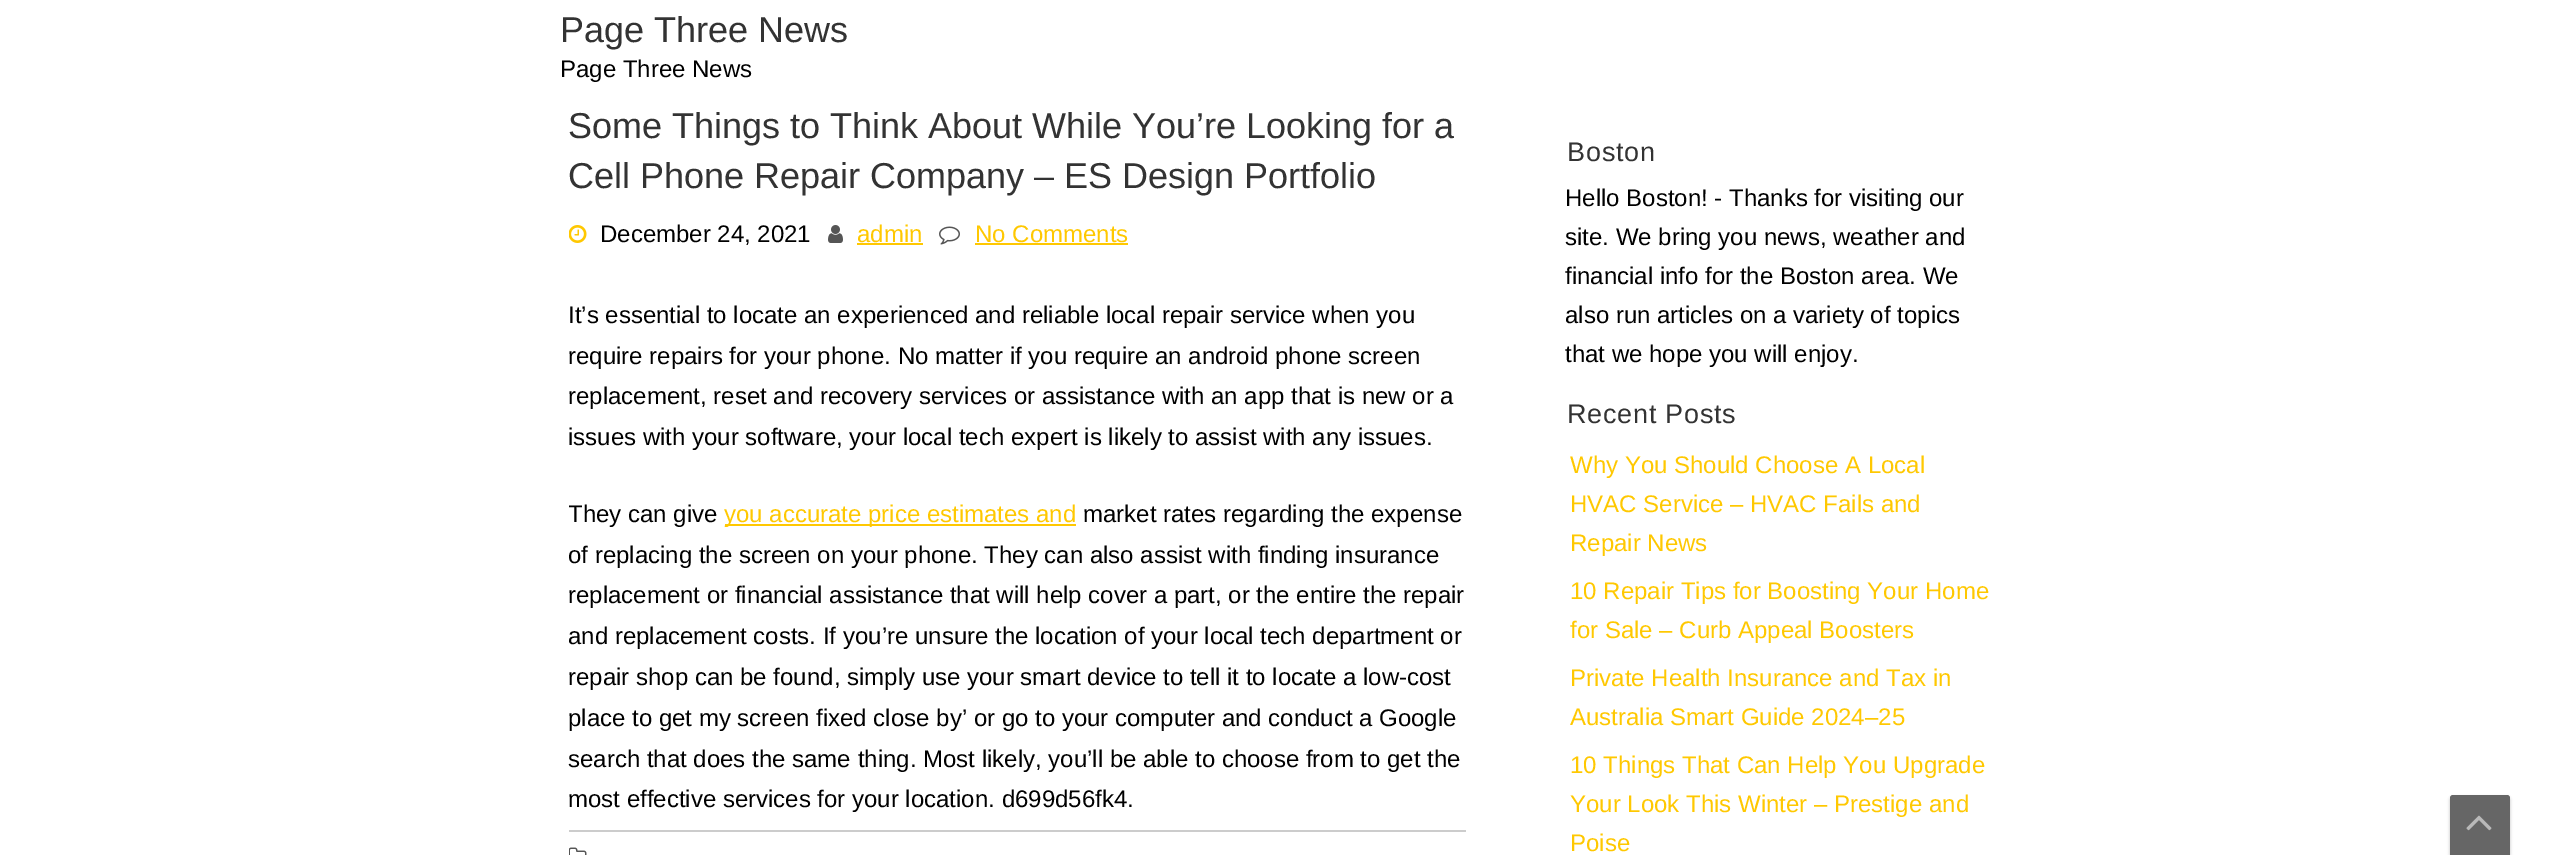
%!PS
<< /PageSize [2560 855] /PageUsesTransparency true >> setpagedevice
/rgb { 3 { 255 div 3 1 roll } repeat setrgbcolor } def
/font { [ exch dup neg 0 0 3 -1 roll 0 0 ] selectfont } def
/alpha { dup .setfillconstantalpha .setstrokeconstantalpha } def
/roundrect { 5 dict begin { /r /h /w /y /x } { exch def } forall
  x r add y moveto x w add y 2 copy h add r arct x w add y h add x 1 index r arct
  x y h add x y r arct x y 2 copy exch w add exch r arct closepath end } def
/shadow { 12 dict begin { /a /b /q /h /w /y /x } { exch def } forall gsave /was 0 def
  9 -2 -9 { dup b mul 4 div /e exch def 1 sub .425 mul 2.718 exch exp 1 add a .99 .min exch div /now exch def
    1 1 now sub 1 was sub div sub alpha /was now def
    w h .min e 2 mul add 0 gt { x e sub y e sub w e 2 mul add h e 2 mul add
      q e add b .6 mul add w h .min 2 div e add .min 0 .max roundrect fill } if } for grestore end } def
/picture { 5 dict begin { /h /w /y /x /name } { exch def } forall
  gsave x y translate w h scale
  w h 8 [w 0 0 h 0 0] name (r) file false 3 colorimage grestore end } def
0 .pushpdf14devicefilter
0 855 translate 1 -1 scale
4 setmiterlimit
255 255 255 rgb
0 0 2560 855 rectfill
(img/1.rgb) 569 225 18 18 picture
(img/2.rgb) 828 225 15 18 picture
255 200 1 rgb
857 243 66 2 rectfill
(img/3.rgb) 939 226 21 19 picture
[
  [975 243 153 2 255 200 1]
  [725 524 351 2 255 200 1]
  [569 830 897 2 204 204 204]
] { aload pop rgb rectfill } forall
(img/4.rgb) 569 847 18 8 picture
26 26 26 rgb
2450 797 60 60 3 1.5 0.25 shadow
102 102 102 rgb
2453 795 moveto 2507 795 lineto 2508.5 795 2510 796.5 2510 798 curveto 2510 855 lineto 2450 855 lineto 2450 798 lineto 2450 796.5 2451.5 795 2453 795 curveto closepath fill
(img/5.rgb) 2466 815 26 16 picture
/LiberationSans-Regular 36 font
51 51 51 rgb
560 42 moveto (Page Three News) show
/LiberationSans-Regular 24 font
0 0 0 rgb
560 77 moveto (Page Three News) show
/LiberationSans-Regular 36 font
51 51 51 rgb
568 138 moveto (Some Things to Think About While You’re Looking for a) show
568 188 moveto (Cell Phone Repair Company – ES Design Portfolio) show
/LiberationSans-Regular 24 font
0 0 0 rgb
600 242 moveto (December 24, 2021) show
255 200 1 rgb
857 242 moveto (admin) show
975 242 moveto (No Comments) show
0 0 0 rgb
[
  [(It’s essential to locate an experienced and reliable local repair service when you) 568 323]
  [(require repairs for your phone. No matter if you require an android phone screen) 568 364]
  [(replacement, reset and recovery services or assistance with an app that is new or a) 568 404]
  [(issues with your software, your local tech expert is likely to assist with any issues.) 568 445]
] { aload pop moveto show } forall
gsave
569 261 897 561 rectclip
568 522 moveto (They can give) show
grestore
255 200 1 rgb
724 522 moveto (you accurate price estimates and) show
0 0 0 rgb
1083 522 moveto (market rates regarding the expense) show
gsave
569 261 897 561 rectclip
568 563 moveto (of replacing the screen on your phone. They can also assist with finding insurance) show
grestore
568 603 moveto (replacement or financial assistance that will help cover a part, or the entire the repair) show
gsave
569 261 897 561 rectclip
568 644 moveto (and replacement costs. If you’re unsure the location of your local tech department or) show
grestore
[
  [(repair shop can be found, simply use your smart device to tell it to locate a low-cost) 568 685]
  [(place to get my screen fixed close by’ or go to your computer and conduct a Google) 568 726]
  [(search that does the same thing. Most likely, you’ll be able to choose from to get the) 568 767]
  [(most effective services for your location. d699d56fk4.) 568 807]
] { aload pop moveto show } forall
/LiberationSans-Regular 27 font
51 51 51 rgb
1567 161 moveto 0.75 0 (Boston) ashow
/LiberationSans-Regular 24 font
0 0 0 rgb
[
  [(Hello Boston! - Thanks for visiting our) 1565 206]
  [(site. We bring you news, weather and) 1565 245]
  [(financial info for the Boston area. We) 1565 284]
  [(also run articles on a variety of topics) 1565 323]
  [(that we hope you will enjoy.) 1565 362]
] { aload pop moveto show } forall
/LiberationSans-Regular 27 font
51 51 51 rgb
1567 423 moveto 0.75 0 (Recent Posts) ashow
/LiberationSans-Regular 24 font
255 200 1 rgb
[
  [(Why You Should Choose A Local) 1570 473]
  [(HVAC Service – HVAC Fails and) 1570 512]
  [(Repair News) 1570 551]
  [(10 Repair Tips for Boosting Your Home) 1570 599]
  [(for Sale – Curb Appeal Boosters) 1570 638]
  [(Private Health Insurance and Tax in) 1570 686]
  [(Australia Smart Guide 2024–25) 1570 725]
  [(10 Things That Can Help You Upgrade) 1570 773]
  [(Your Look This Winter – Prestige and) 1570 812]
  [(Poise) 1570 851]
] { aload pop moveto show } forall
.poppdf14devicefilter showpage
